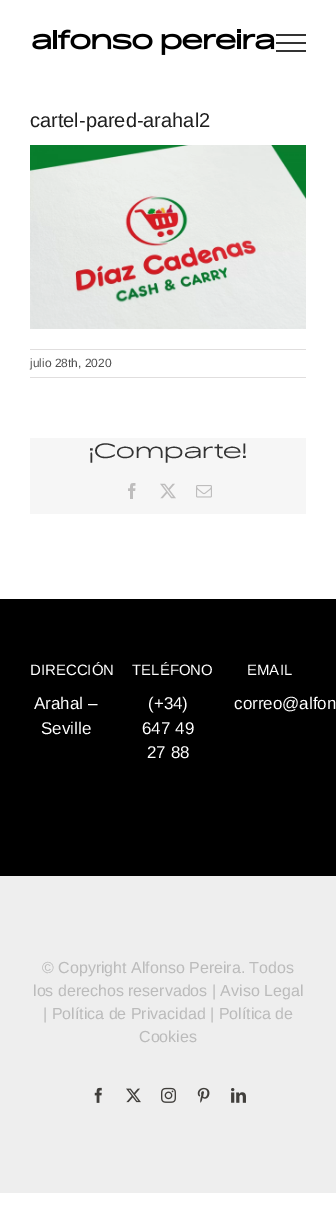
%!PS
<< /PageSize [336 1222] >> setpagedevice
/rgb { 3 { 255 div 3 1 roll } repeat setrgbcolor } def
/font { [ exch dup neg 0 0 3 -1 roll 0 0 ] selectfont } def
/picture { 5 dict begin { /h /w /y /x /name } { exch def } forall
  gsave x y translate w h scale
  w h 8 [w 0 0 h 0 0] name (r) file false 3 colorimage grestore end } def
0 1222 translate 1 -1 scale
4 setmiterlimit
255 255 255 rgb
0 0 336 1222 rectfill
(img/1.rgb) 32 29 243 26 picture
[
  [276 34 30 2 51 51 51]
  [276 42 30 2 51 51 51]
  [276 50 30 2 51 51 51]
] { aload pop rgb rectfill } forall
(img/2.rgb) 30 145 276 184 picture
[
  [30 349 276 1 224 222 222]
  [30 377 276 1 224 222 222]
  [30 438 276 76 246 246 246]
] { aload pop rgb rectfill } forall
(img/3.rgb) 128 483 8 16 picture
(img/4.rgb) 160 483 16 16 picture
(img/5.rgb) 196 485 16 13 picture
0 0 0 rgb
0 599 336 277 rectfill
238 238 238 rgb
0 876 336 317 rectfill
(img/6.rgb) 94 1087 8 16 picture
(img/7.rgb) 126 1088 15 15 picture
(img/8.rgb) 161 1087 15 16 picture
(img/9.rgb) 197 1087 13 16 picture
(img/10.rgb) 231 1088 15 15 picture
/LiberationSans-Regular 20 font
31 31 31 rgb
30 127 moveto (cartel-pared-arahal2) show
/LiberationSans-Regular 12 font
80 80 80 rgb
30 367 moveto (julio 28th, 2020) show
/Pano-Light 20 font
51 51 51 rgb
89 458 moveto (¡Comparte!) show
/LiberationSans-Regular 15 font
255 255 255 rgb
30 675 moveto (DIRECCIÓN) show
/LiberationSans-Regular 17 font
34 709 moveto (Arahal –) show
41 734 moveto (Seville) show
/LiberationSans-Regular 15 font
132 675 moveto (TELÉFONO) show
/LiberationSans-Regular 17 font
[
  [(\(+34\)) 148 709]
  [(647 49) 142 734]
  [(27 88) 147 758]
] { aload pop moveto show } forall
/LiberationSans-Regular 15 font
247 675 moveto (EMAIL) show
/LiberationSans-Regular 17 font
234 709 moveto (correo@alfon) show
/LiberationSans-Regular 16 font
187 187 187 rgb
[
  [(© Copyright Alfonso Pereira. Todos) 42 973]
  [(los derechos reservados | Aviso Legal) 33 996]
  [(| Política de Privacidad | Política de) 43 1019]
  [(Cookies) 139 1042]
] { aload pop moveto show } forall
showpage
